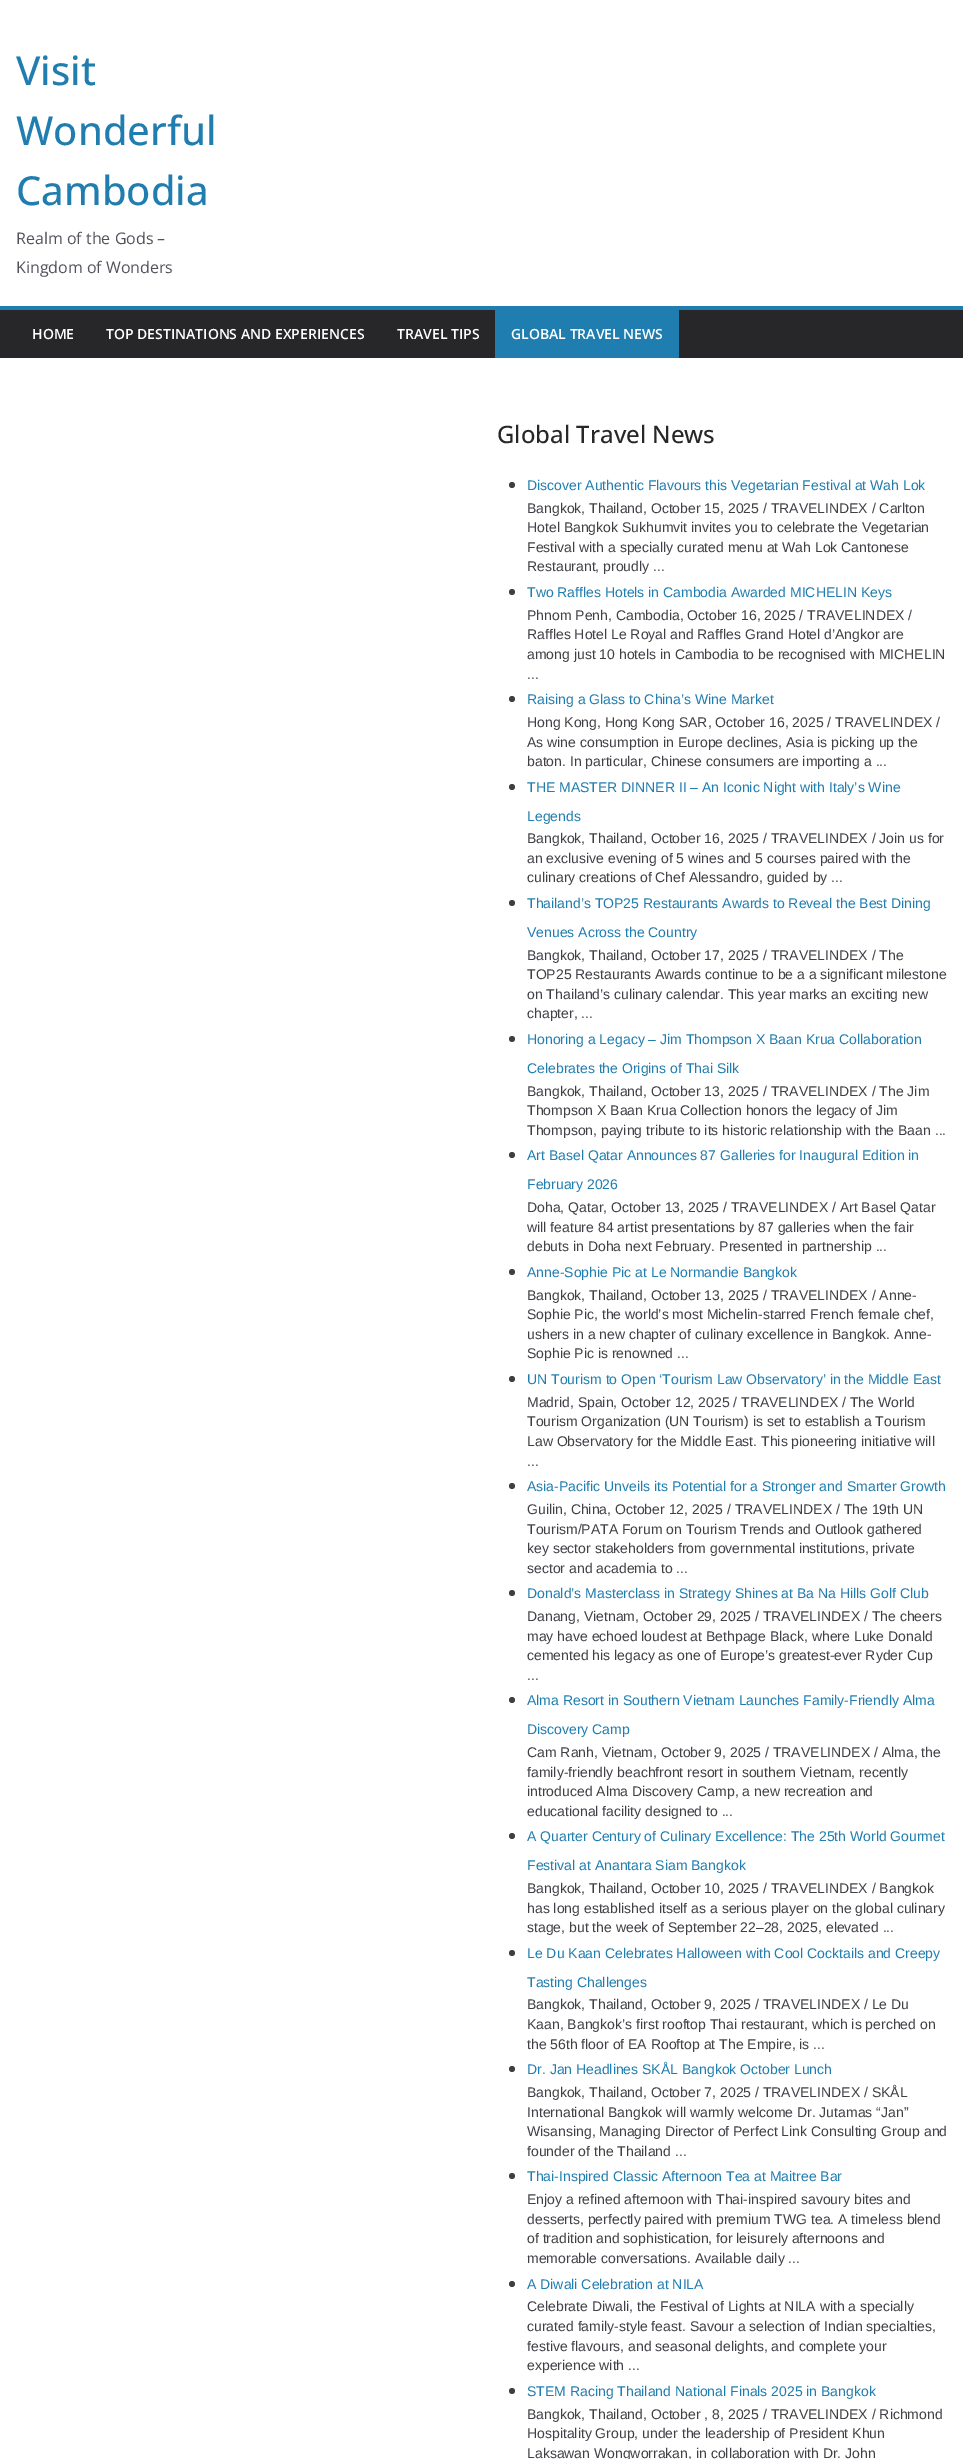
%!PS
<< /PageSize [963 2459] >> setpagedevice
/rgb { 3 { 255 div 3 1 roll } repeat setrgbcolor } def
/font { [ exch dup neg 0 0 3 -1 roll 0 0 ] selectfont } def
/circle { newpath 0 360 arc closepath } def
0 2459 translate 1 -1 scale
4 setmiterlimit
255 255 255 rgb
0 0 963 2459 rectfill
[
  [0 310 963 48 39 39 42]
  [0 306 963 4 32 125 175]
  [495 310 184 48 32 125 175]
] { aload pop rgb rectfill } forall
63 63 70 rgb
512 485 3 circle fill
512 592 3 circle fill
512 699 3 circle fill
512 787 3 circle fill
512 903 3 circle fill
512 1039 3 circle fill
512 1155 3 circle fill
512 1272 3 circle fill
512 1379 3 circle fill
512 1486 3 circle fill
512 1593 3 circle fill
512 1700 3 circle fill
512 1836 3 circle fill
512 1953 3 circle fill
512 2069 3 circle fill
512 2176 3 circle fill
512 2284 3 circle fill
512 2391 3 circle fill
/OpenSans-Medium 40 font
32 125 175 rgb
[
  [(Visit) 16 85]
  [(Wonderful) 16 145]
  [(Cambodia) 16 205]
] { aload pop moveto show } forall
/OpenSans-Regular 16 font
82 82 91 rgb
16 244 moveto (Realm of the Gods –) show
16 273 moveto (Kingdom of Wonders) show
/OpenSans-SemiBold 14 font
255 255 255 rgb
[
  [(HOME) 32 339]
  [(TOP DESTINATIONS AND EXPERIENCES) 106 339]
  [(TRAVEL TIPS) 397 339]
  [(GLOBAL TRAVEL NEWS) 511 339]
] { aload pop moveto show } forall
/OpenSans-Medium 24 font
39 39 42 rgb
497 443 moveto (Global Travel News) show
/LiberationSans-Regular 14 font
32 125 175 rgb
527 490 moveto (Discover Authentic Flavours this Vegetarian Festival at Wah Lok) show
63 63 70 rgb
[
  [(Bangkok, Thailand, October 15, 2025 / TRAVELINDEX / Carlton) 527 513]
  [(Hotel Bangkok Sukhumvit invites you to celebrate the Vegetarian) 527 532]
  [(Festival with a specially curated menu at Wah Lok Cantonese) 527 552]
  [(Restaurant, proudly ...) 527 571]
] { aload pop moveto show } forall
32 125 175 rgb
527 597 moveto (Two Raffles Hotels in Cambodia Awarded MICHELIN Keys) show
63 63 70 rgb
[
  [(Phnom Penh, Cambodia, October 16, 2025 / TRAVELINDEX /) 527 620]
  [(Raffles Hotel Le Royal and Raffles Grand Hotel d’Angkor are) 527 639]
  [(among just 10 hotels in Cambodia to be recognised with MICHELIN) 527 659]
  [(...) 527 679]
] { aload pop moveto show } forall
32 125 175 rgb
527 704 moveto (Raising a Glass to China’s Wine Market) show
63 63 70 rgb
[
  [(Hong Kong, Hong Kong SAR, October 16, 2025 / TRAVELINDEX /) 527 727]
  [(As wine consumption in Europe declines, Asia is picking up the) 527 747]
  [(baton. In particular, Chinese consumers are importing a ...) 527 766]
] { aload pop moveto show } forall
32 125 175 rgb
527 792 moveto (THE MASTER DINNER II – An Iconic Night with Italy’s Wine) show
527 821 moveto (Legends) show
63 63 70 rgb
[
  [(Bangkok, Thailand, October 16, 2025 / TRAVELINDEX / Join us for) 527 843]
  [(an exclusive evening of 5 wines and 5 courses paired with the) 527 863]
  [(culinary creations of Chef Alessandro, guided by ...) 527 882]
] { aload pop moveto show } forall
32 125 175 rgb
527 908 moveto (Thailand’s TOP25 Restaurants Awards to Reveal the Best Dining) show
527 937 moveto (Venues Across the Country) show
63 63 70 rgb
[
  [(Bangkok, Thailand, October 17, 2025 / TRAVELINDEX / The) 527 960]
  [(TOP25 Restaurants Awards continue to be a a significant milestone) 527 979]
  [(on Thailand’s culinary calendar. This year marks an exciting new) 527 999]
  [(chapter, ...) 527 1018]
] { aload pop moveto show } forall
32 125 175 rgb
527 1044 moveto (Honoring a Legacy – Jim Thompson X Baan Krua Collaboration) show
527 1073 moveto (Celebrates the Origins of Thai Silk) show
63 63 70 rgb
[
  [(Bangkok, Thailand, October 13, 2025 / TRAVELINDEX / The Jim) 527 1096]
  [(Thompson X Baan Krua Collection honors the legacy of Jim) 527 1115]
  [(Thompson, paying tribute to its historic relationship with the Baan ...) 527 1135]
] { aload pop moveto show } forall
32 125 175 rgb
527 1160 moveto (Art Basel Qatar Announces 87 Galleries for Inaugural Edition in) show
527 1189 moveto (February 2026) show
63 63 70 rgb
[
  [(Doha, Qatar, October 13, 2025 / TRAVELINDEX / Art Basel Qatar) 527 1212]
  [(will feature 84 artist presentations by 87 galleries when the fair) 527 1232]
  [(debuts in Doha next February. Presented in partnership ...) 527 1251]
] { aload pop moveto show } forall
32 125 175 rgb
527 1277 moveto (Anne-Sophie Pic at Le Normandie Bangkok) show
63 63 70 rgb
[
  [(Bangkok, Thailand, October 13, 2025 / TRAVELINDEX / Anne-) 527 1300]
  [(Sophie Pic, the world’s most Michelin-starred French female chef,) 527 1319]
  [(ushers in a new chapter of culinary excellence in Bangkok. Anne-) 527 1339]
  [(Sophie Pic is renowned ...) 527 1358]
] { aload pop moveto show } forall
32 125 175 rgb
527 1384 moveto (UN Tourism to Open ‘Tourism Law Observatory’ in the Middle East) show
63 63 70 rgb
[
  [(Madrid, Spain, October 12, 2025 / TRAVELINDEX / The World) 527 1407]
  [(Tourism Organization \(UN Tourism\) is set to establish a Tourism) 527 1426]
  [(Law Observatory for the Middle East. This pioneering initiative will) 527 1446]
  [(...) 527 1466]
] { aload pop moveto show } forall
32 125 175 rgb
527 1491 moveto (Asia-Pacific Unveils its Potential for a Stronger and Smarter Growth) show
63 63 70 rgb
[
  [(Guilin, China, October 12, 2025 / TRAVELINDEX / The 19th UN) 527 1514]
  [(Tourism/PATA Forum on Tourism Trends and Outlook gathered) 527 1534]
  [(key sector stakeholders from governmental institutions, private) 527 1553]
  [(sector and academia to ...) 527 1573]
] { aload pop moveto show } forall
32 125 175 rgb
527 1598 moveto (Donald’s Masterclass in Strategy Shines at Ba Na Hills Golf Club) show
63 63 70 rgb
[
  [(Danang, Vietnam, October 29, 2025 / TRAVELINDEX / The cheers) 527 1621]
  [(may have echoed loudest at Bethpage Black, where Luke Donald) 527 1641]
  [(cemented his legacy as one of Europe’s greatest-ever Ryder Cup) 527 1660]
  [(...) 527 1680]
] { aload pop moveto show } forall
32 125 175 rgb
527 1705 moveto (Alma Resort in Southern Vietnam Launches Family-Friendly Alma) show
527 1734 moveto (Discovery Camp) show
63 63 70 rgb
[
  [(Cam Ranh, Vietnam, October 9, 2025 / TRAVELINDEX / Alma, the) 527 1757]
  [(family-friendly beachfront resort in southern Vietnam, recently) 527 1777]
  [(introduced Alma Discovery Camp, a new recreation and) 527 1796]
  [(educational facility designed to ...) 527 1816]
] { aload pop moveto show } forall
32 125 175 rgb
527 1841 moveto (A Quarter Century of Culinary Excellence: The 25th World Gourmet) show
527 1870 moveto (Festival at Anantara Siam Bangkok) show
63 63 70 rgb
[
  [(Bangkok, Thailand, October 10, 2025 / TRAVELINDEX / Bangkok) 527 1893]
  [(has long established itself as a serious player on the global culinary) 527 1913]
  [(stage, but the week of September 22–28, 2025, elevated ...) 527 1932]
] { aload pop moveto show } forall
32 125 175 rgb
527 1958 moveto (Le Du Kaan Celebrates Halloween with Cool Cocktails and Creepy) show
527 1987 moveto (Tasting Challenges) show
63 63 70 rgb
[
  [(Bangkok, Thailand, October 9, 2025 / TRAVELINDEX / Le Du) 527 2009]
  [(Kaan, Bangkok’s first rooftop Thai restaurant, which is perched on) 527 2029]
  [(the 56th floor of EA Rooftop at The Empire, is ...) 527 2049]
] { aload pop moveto show } forall
32 125 175 rgb
527 2074 moveto (Dr. Jan Headlines SKÅL Bangkok October Lunch) show
63 63 70 rgb
[
  [(Bangkok, Thailand, October 7, 2025 / TRAVELINDEX / SKÅL) 527 2097]
  [(International Bangkok will warmly welcome Dr. Jutamas “Jan”) 527 2117]
  [(Wisansing, Managing Director of Perfect Link Consulting Group and) 527 2136]
  [(founder of the Thailand ...) 527 2156]
] { aload pop moveto show } forall
32 125 175 rgb
527 2181 moveto (Thai-Inspired Classic Afternoon Tea at Maitree Bar) show
63 63 70 rgb
[
  [(Enjoy a refined afternoon with Thai-inspired savoury bites and) 527 2204]
  [(desserts, perfectly paired with premium TWG tea. A timeless blend) 527 2224]
  [(of tradition and sophistication, for leisurely afternoons and) 527 2243]
  [(memorable conversations. Available daily ...) 527 2263]
] { aload pop moveto show } forall
32 125 175 rgb
527 2289 moveto (A Diwali Celebration at NILA) show
63 63 70 rgb
[
  [(Celebrate Diwali, the Festival of Lights at NILA with a specially) 527 2311]
  [(curated family-style feast. Savour a selection of Indian specialties,) 527 2331]
  [(festive flavours, and seasonal delights, and complete your) 527 2351]
  [(experience with ...) 527 2370]
] { aload pop moveto show } forall
32 125 175 rgb
527 2396 moveto (STEM Racing Thailand National Finals 2025 in Bangkok) show
63 63 70 rgb
[
  [(Bangkok, Thailand, October , 8, 2025 / TRAVELINDEX / Richmond) 527 2419]
  [(Hospitality Group, under the leadership of President Khun) 527 2438]
  [(Laksawan Wongworrakan, in collaboration with Dr. John) 527 2458]
] { aload pop moveto show } forall
showpage
